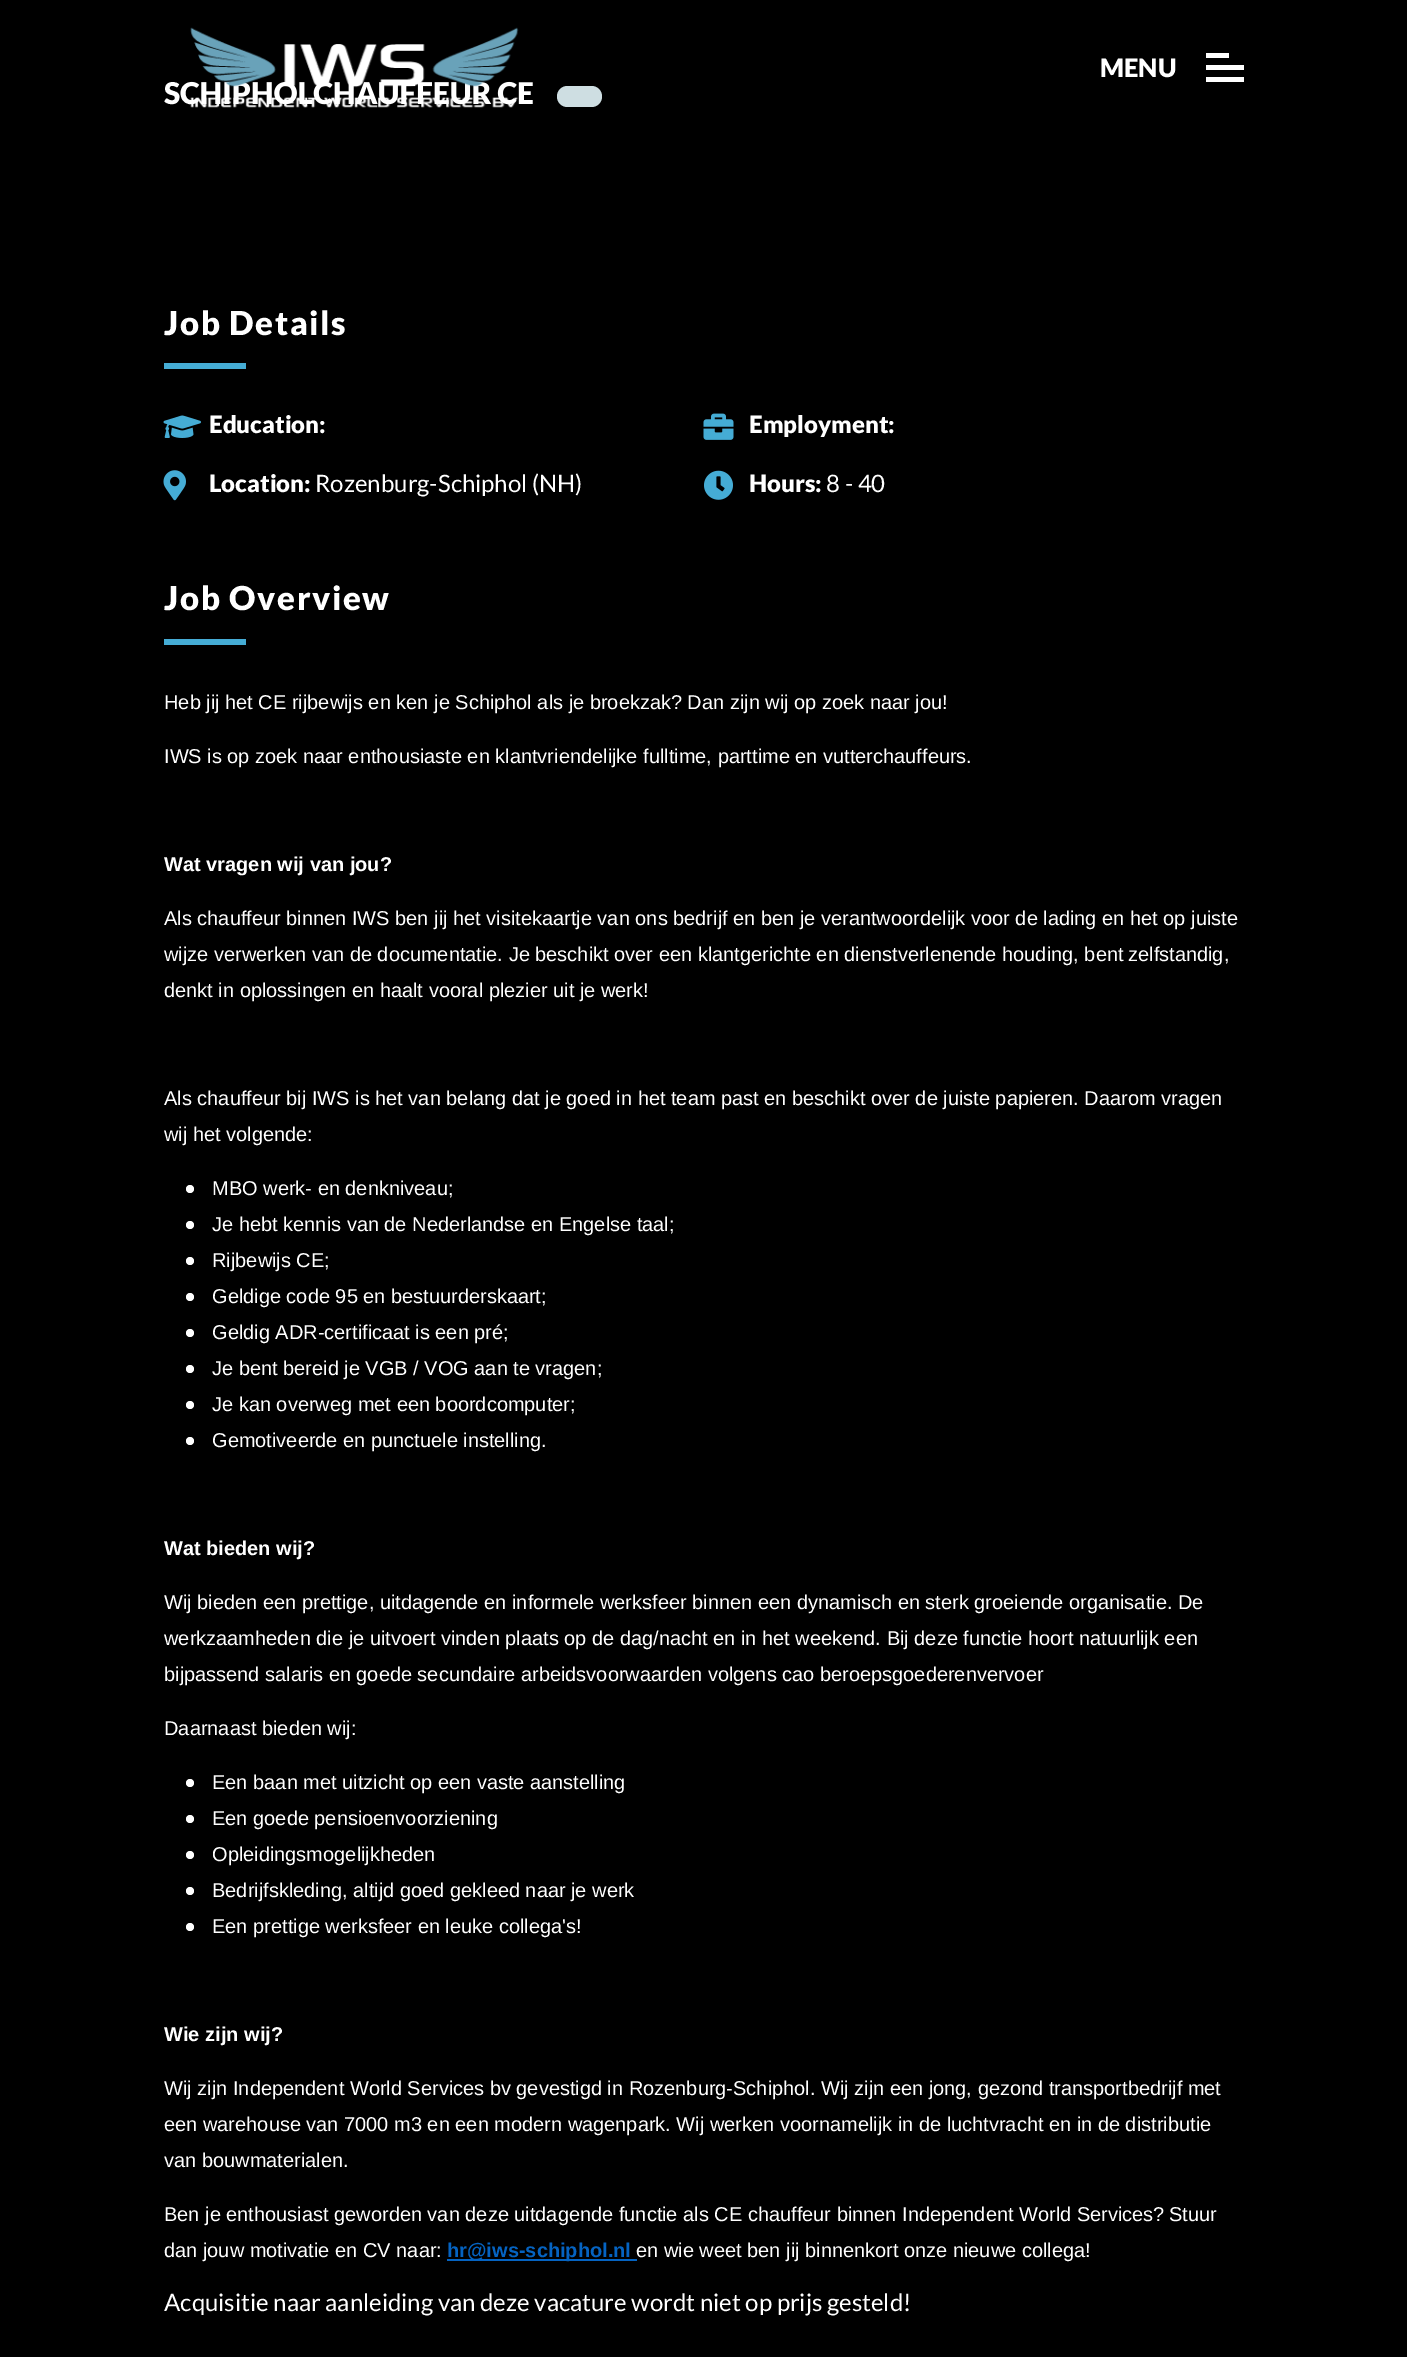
%!PS
<< /PageSize [1407 2357] >> setpagedevice
/rgb { 3 { 255 div 3 1 roll } repeat setrgbcolor } def
/font { [ exch dup neg 0 0 3 -1 roll 0 0 ] selectfont } def
/circle { newpath 0 360 arc closepath } def
/roundrect { 5 dict begin { /r /h /w /y /x } { exch def } forall
  x r add y moveto x w add y 2 copy h add r arct x w add y h add x 1 index r arct
  x y h add x y r arct x y 2 copy exch w add exch r arct closepath end } def
/picture { 5 dict begin { /h /w /y /x /name } { exch def } forall
  gsave x y translate w h scale
  w h 8 [w 0 0 h 0 0] name (r) file false 3 colorimage grestore end } def
0 2357 translate 1 -1 scale
4 setmiterlimit
0 0 0 rgb
0 0 1407 2357 rectfill
[
  [1206 53 23 5 255 255 255]
  [1206 65 38 5 255 255 255]
  [1206 77 38 5 255 255 255]
] { aload pop rgb rectfill } forall
206 222 226 rgb
557 86 45 21 10.5 roundrect fill
69 172 213 rgb
164 363 82 6 rectfill
(img/2.rgb) 163 415 38 23 picture
(img/3.rgb) 703 413 31 27 picture
(img/4.rgb) 163 470 23 31 picture
(img/5.rgb) 704 470 29 30 picture
164 639 82 6 rectfill
255 255 255 rgb
190 1189 4 circle fill
190 1225 4 circle fill
190 1261 4 circle fill
190 1297 4 circle fill
190 1333 4 circle fill
190 1369 4 circle fill
190 1405 4 circle fill
190 1441 4 circle fill
190 1783 4 circle fill
190 1819 4 circle fill
190 1855 4 circle fill
190 1891 4 circle fill
190 1927 4 circle fill
5 99 193 rgb
447 2259 190 2 rectfill
/Lato-Black 25.5 font
255 255 255 rgb
1100 77 moveto (MENU) show
/Lato-Black 30 font
164 104 moveto (SCHIPHOLCHAUFFEUR CE) show
(img/1.rgb) 190 27 329 81 picture
/Lato-Black 33 font
164 335 moveto 1.6 0 (Job Details) ashow
/Lato-Black 24 font
[
  [(Education:) 209 433]
  [(Employment:) 749 433]
  [(Location:) 209 492]
] { aload pop moveto show } forall
/Lato-Regular 24 font
315 492 moveto (Rozenburg-Schiphol \(NH\)) show
/Lato-Black 24 font
749 492 moveto (Hours:) show
/Lato-Regular 24 font
826 492 moveto (8 - 40) show
/Lato-Black 33 font
164 610 moveto 1.6 0 (Job Overview) ashow
/LiberationSans-Regular 20 font
164 709 moveto (Heb jij het CE rijbewijs en ken je Schiphol als je broekzak? Dan zijn wij op zoek naar jou!) show
164 763 moveto (IWS is op zoek naar enthousiaste en klantvriendelijke fulltime, parttime en vutterchauffeurs.) show
/LiberationSans-Bold 20 font
164 871 moveto (Wat vragen wij van jou?) show
/LiberationSans-Regular 20 font
[
  [(Als chauffeur binnen IWS ben jij het visitekaartje van ons bedrijf en ben je verantwoordelijk voor de lading en het op juiste) 164 925]
  [(wijze verwerken van de documentatie. Je beschikt over een klantgerichte en dienstverlenende houding, bent) 164 961]
  [(zelfstandig,) 1128 961]
  [(denkt in oplossingen en haalt vooral plezier uit je werk!) 164 997]
  [(Als chauffeur bij IWS is het van belang dat je goed in het team past en beschikt over de juiste papieren. Daarom vragen) 164 1105]
  [(wij het volgende:) 164 1141]
  [(MBO werk- en denkniveau;) 212 1195]
  [(Je hebt kennis van de Nederlandse en Engelse taal;) 212 1231]
  [(Rijbewijs CE;) 212 1267]
  [(Geldige code 95 en bestuurderskaart;) 212 1303]
  [(Geldig ADR-certificaat is een pré;) 212 1339]
  [(Je bent bereid je VGB / VOG aan te vragen;) 212 1375]
  [(Je kan overweg met een boordcomputer;) 212 1411]
  [(Gemotiveerde en punctuele instelling.) 212 1447]
] { aload pop moveto show } forall
/LiberationSans-Bold 20 font
164 1555 moveto (Wat bieden wij?) show
/LiberationSans-Regular 20 font
[
  [(Wij bieden een prettige, uitdagende en informele werksfeer binnen een dynamisch en sterk groeiende organisatie. De) 164 1609]
  [(werkzaamheden die je uitvoert vinden plaats op de dag/nacht en in het weekend. Bij deze functie hoort natuurlijk een) 164 1645]
  [(bijpassend salaris en goede secundaire arbeidsvoorwaarden volgens cao beroepsgoederenvervoer) 164 1681]
  [(Daarnaast bieden wij:) 164 1735]
  [(Een baan met uitzicht op een vaste aanstelling) 212 1789]
  [(Een goede pensioenvoorziening) 212 1825]
  [(Opleidingsmogelijkheden) 212 1861]
  [(Bedrijfskleding, altijd goed gekleed naar je werk) 212 1897]
  [(Een prettige werksfeer en leuke collega's!) 212 1933]
] { aload pop moveto show } forall
/LiberationSans-Bold 20 font
164 2041 moveto (Wie zijn wij?) show
/LiberationSans-Regular 20 font
[
  [(Wij zijn Independent World Services bv gevestigd in Rozenburg-Schiphol. Wij zijn een jong, gezond transportbedrijf met) 164 2095]
  [(een warehouse van 7000 m3 en een modern wagenpark. Wij werken voornamelijk in de luchtvracht en in de distributie) 164 2131]
  [(van bouwmaterialen.) 164 2167]
  [(Ben je enthousiast geworden van deze uitdagende functie als CE chauffeur binnen Independent World Services?) 164 2221]
  [(Stuur) 1169 2221]
  [(dan jouw motivatie en CV naar:) 164 2257]
] { aload pop moveto show } forall
/LiberationSans-Bold 20 font
5 99 193 rgb
447 2257 moveto (hr@iws-schiphol.nl) show
/LiberationSans-Regular 20 font
255 255 255 rgb
636 2257 moveto (en wie weet ben jij binnenkort onze nieuwe collega!) show
/Lato-Regular 24 font
164 2311 moveto (Acquisitie naar aanleiding van deze vacature wordt niet op prijs gesteld!) show
showpage
